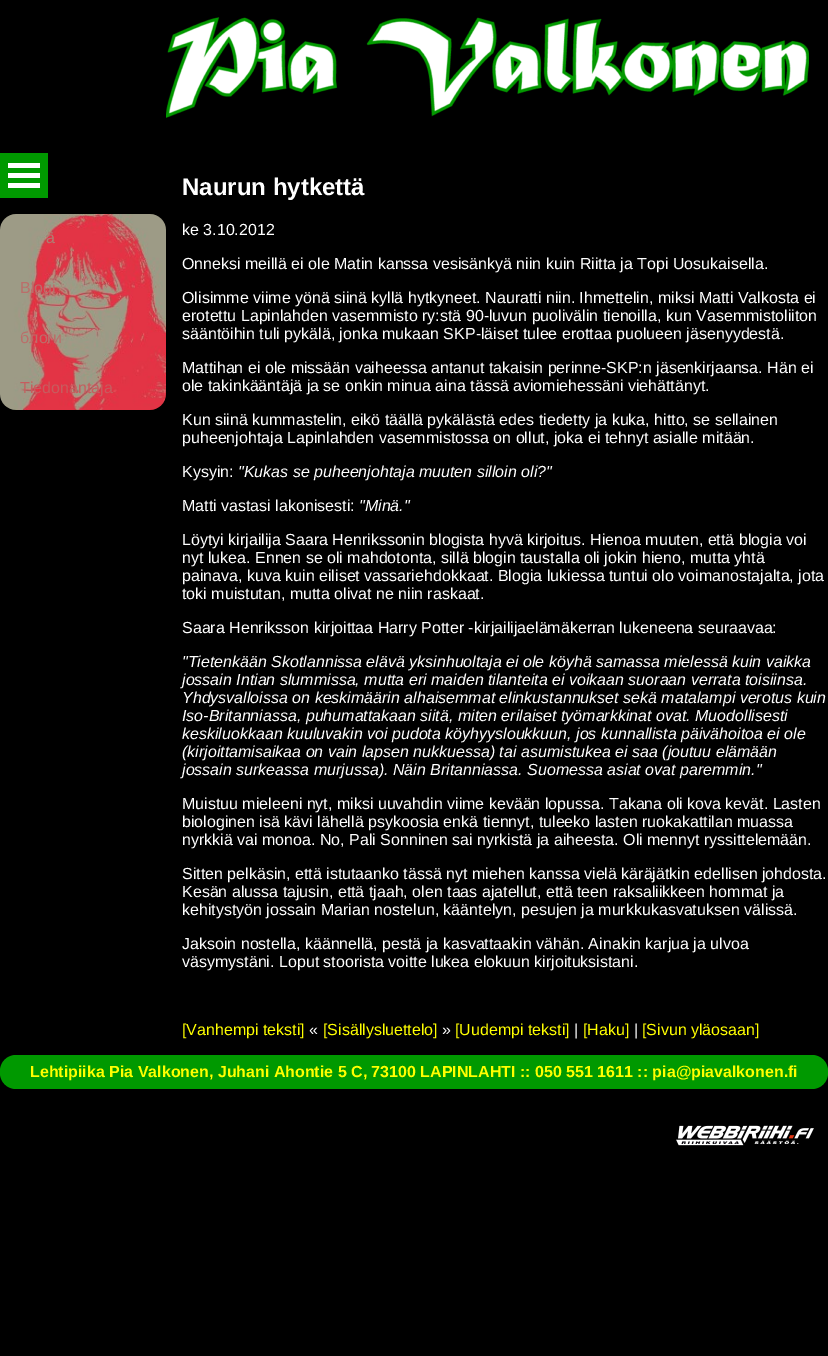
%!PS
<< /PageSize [828 1356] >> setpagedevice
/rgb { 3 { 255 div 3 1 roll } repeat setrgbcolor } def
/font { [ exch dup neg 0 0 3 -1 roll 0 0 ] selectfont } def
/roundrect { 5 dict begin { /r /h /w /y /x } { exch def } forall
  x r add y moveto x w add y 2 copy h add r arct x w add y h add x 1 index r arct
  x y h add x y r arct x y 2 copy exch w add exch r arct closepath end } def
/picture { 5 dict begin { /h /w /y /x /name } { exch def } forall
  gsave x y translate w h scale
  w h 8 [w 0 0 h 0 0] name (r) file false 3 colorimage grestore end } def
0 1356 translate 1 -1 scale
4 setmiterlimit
0 0 0 rgb
0 0 828 1356 rectfill
(img/1.rgb) 166 17 643 101 picture
(img/2.rgb) 0 214 166 196 picture
[
  [0 153 48 45 0 153 0]
  [8 183 32 5 255 255 255]
  [8 173 32 5 255 255 255]
  [8 163 32 5 255 255 255]
] { aload pop rgb rectfill } forall
0 153 0 rgb
0 1055 828 34 16 roundrect fill
(img/3.rgb) 676 1125 138 21 picture
/LiberationSans-Regular 16 font
176 125 115 rgb
46 243 moveto (ä) show
187 110 106 rgb
20 293 moveto (Blogi) show
20 343 moveto (блоги) show
199 92 94 rgb
20 393 moveto (Tiedonantaja) show
/LiberationSans-Bold 24 font
255 255 255 rgb
182 195 moveto (Naurun hytkettä) show
/LiberationSans-Regular 16 font
[
  [(ke 3.10.2012) 182 235]
  [(Onneksi meillä ei ole Matin kanssa vesisänkyä niin kuin Riitta ja Topi Uosukaisella.) 182 269]
  [(Olisimme viime yönä siinä kyllä hytkyneet. Nauratti niin. Ihmettelin, miksi Matti Valkosta ei) 182 303]
  [(erotettu Lapinlahden vasemmisto ry:stä 90-luvun puolivälin tienoilla, kun Vasemmistoliiton) 182 321]
  [(sääntöihin tuli pykälä, jonka mukaan SKP-läiset tulee erottaa puolueen jäsenyydestä.) 182 339]
  [(Mattihan ei ole missään vaiheessa antanut takaisin perinne-SKP:n jäsenkirjaansa. Hän ei) 182 373]
  [(ole takinkääntäjä ja se onkin minua aina tässä aviomiehessäni viehättänyt.) 182 391]
  [(Kun siinä kummastelin, eikö täällä pykälästä edes tiedetty ja kuka, hitto, se sellainen) 182 425]
  [(puheenjohtaja Lapinlahden vasemmistossa on ollut, joka ei tehnyt asialle mitään.) 182 443]
  [(Kysyin:) 182 477]
] { aload pop moveto show } forall
/LiberationSans-Italic 16 font
238 477 moveto ("Kukas se puheenjohtaja muuten silloin oli?") show
/LiberationSans-Regular 16 font
182 511 moveto (Matti vastasi lakonisesti:) show
/LiberationSans-Italic 16 font
359 511 moveto ("Minä.") show
/LiberationSans-Regular 16 font
[
  [(Löytyi kirjailija Saara Henrikssonin blogista hyvä kirjoitus. Hienoa muuten, että blogia voi) 182 545]
  [(nyt lukea. Ennen se oli mahdotonta, sillä blogin taustalla oli jokin hieno, mutta yhtä) 182 563]
  [(painava, kuva kuin eiliset vassariehdokkaat. Blogia lukiessa tuntui olo voimanostajalta, jota) 182 581]
  [(toki muistutan, mutta olivat ne niin raskaat.) 182 599]
  [(Saara Henriksson kirjoittaa Harry Potter -kirjailijaelämäkerran lukeneena seuraavaa:) 182 633]
] { aload pop moveto show } forall
/LiberationSans-Italic 16 font
[
  [("Tietenkään Skotlannissa elävä yksinhuoltaja ei ole köyhä samassa mielessä kuin vaikka) 182 667]
  [(jossain Intian slummissa, mutta eri maiden tilanteita ei voikaan suoraan verrata toisiinsa.) 182 685]
  [(Yhdysvalloissa on keskimäärin alhaisemmat elinkustannukset sekä matalampi verotus kuin) 182 703]
  [(Iso-Britanniassa, puhumattakaan siitä, miten erilaiset työmarkkinat ovat. Muodollisesti) 182 721]
  [(keskiluokkaan kuuluvakin voi pudota köyhyysloukkuun, jos kunnallista päivähoitoa ei ole) 182 739]
  [(\(kirjoittamisaikaa on vain lapsen nukkuessa\) tai asumistukea ei saa \(joutuu elämään) 182 757]
  [(jossain surkeassa murjussa\). Näin Britanniassa. Suomessa asiat ovat paremmin.") 182 775]
] { aload pop moveto show } forall
/LiberationSans-Regular 16 font
[
  [(Muistuu mieleeni nyt, miksi uuvahdin viime kevään lopussa. Takana oli kova kevät. Lasten) 182 809]
  [(biologinen isä kävi lähellä psykoosia enkä tiennyt, tuleeko lasten ruokakattilan muassa) 182 827]
  [(nyrkkiä vai monoa. No, Pali Sonninen sai nyrkistä ja aiheesta. Oli mennyt ryssittelemään.) 182 845]
  [(Sitten pelkäsin, että istutaanko tässä nyt miehen kanssa vielä käräjätkin edellisen johdosta.) 182 879]
  [(Kesän alussa tajusin, että tjaah, olen taas ajatellut, että teen raksaliikkeen hommat ja) 182 897]
  [(kehitystyön jossain Marian nostelun, kääntelyn, pesujen ja murkkukasvatuksen välissä.) 182 915]
  [(Jaksoin nostella, käännellä, pestä ja kasvattaakin vähän. Ainakin karjua ja ulvoa) 182 949]
  [(väsymystäni. Loput stoorista voitte lukea elokuun kirjoituksistani.) 182 967]
] { aload pop moveto show } forall
255 255 0 rgb
182 1035 moveto ([Vanhempi teksti]) show
255 255 255 rgb
309 1035 moveto («) show
255 255 0 rgb
323 1035 moveto ([Sisällysluettelo]) show
255 255 255 rgb
442 1035 moveto (») show
255 255 0 rgb
455 1035 moveto ([Uudempi teksti]) show
255 255 255 rgb
574 1035 moveto (|) show
255 255 0 rgb
583 1035 moveto ([Haku]) show
255 255 255 rgb
634 1035 moveto (|) show
255 255 0 rgb
642 1035 moveto ([Sivun yläosaan]) show
/LiberationSans-Bold 16 font
30 1077 moveto (Lehtipiika Pia Valkonen, Juhani Ahontie 5 C, 73100 LAPINLAHTI :: 050 551 1611 :: pia@piavalkonen.fi) show
showpage
